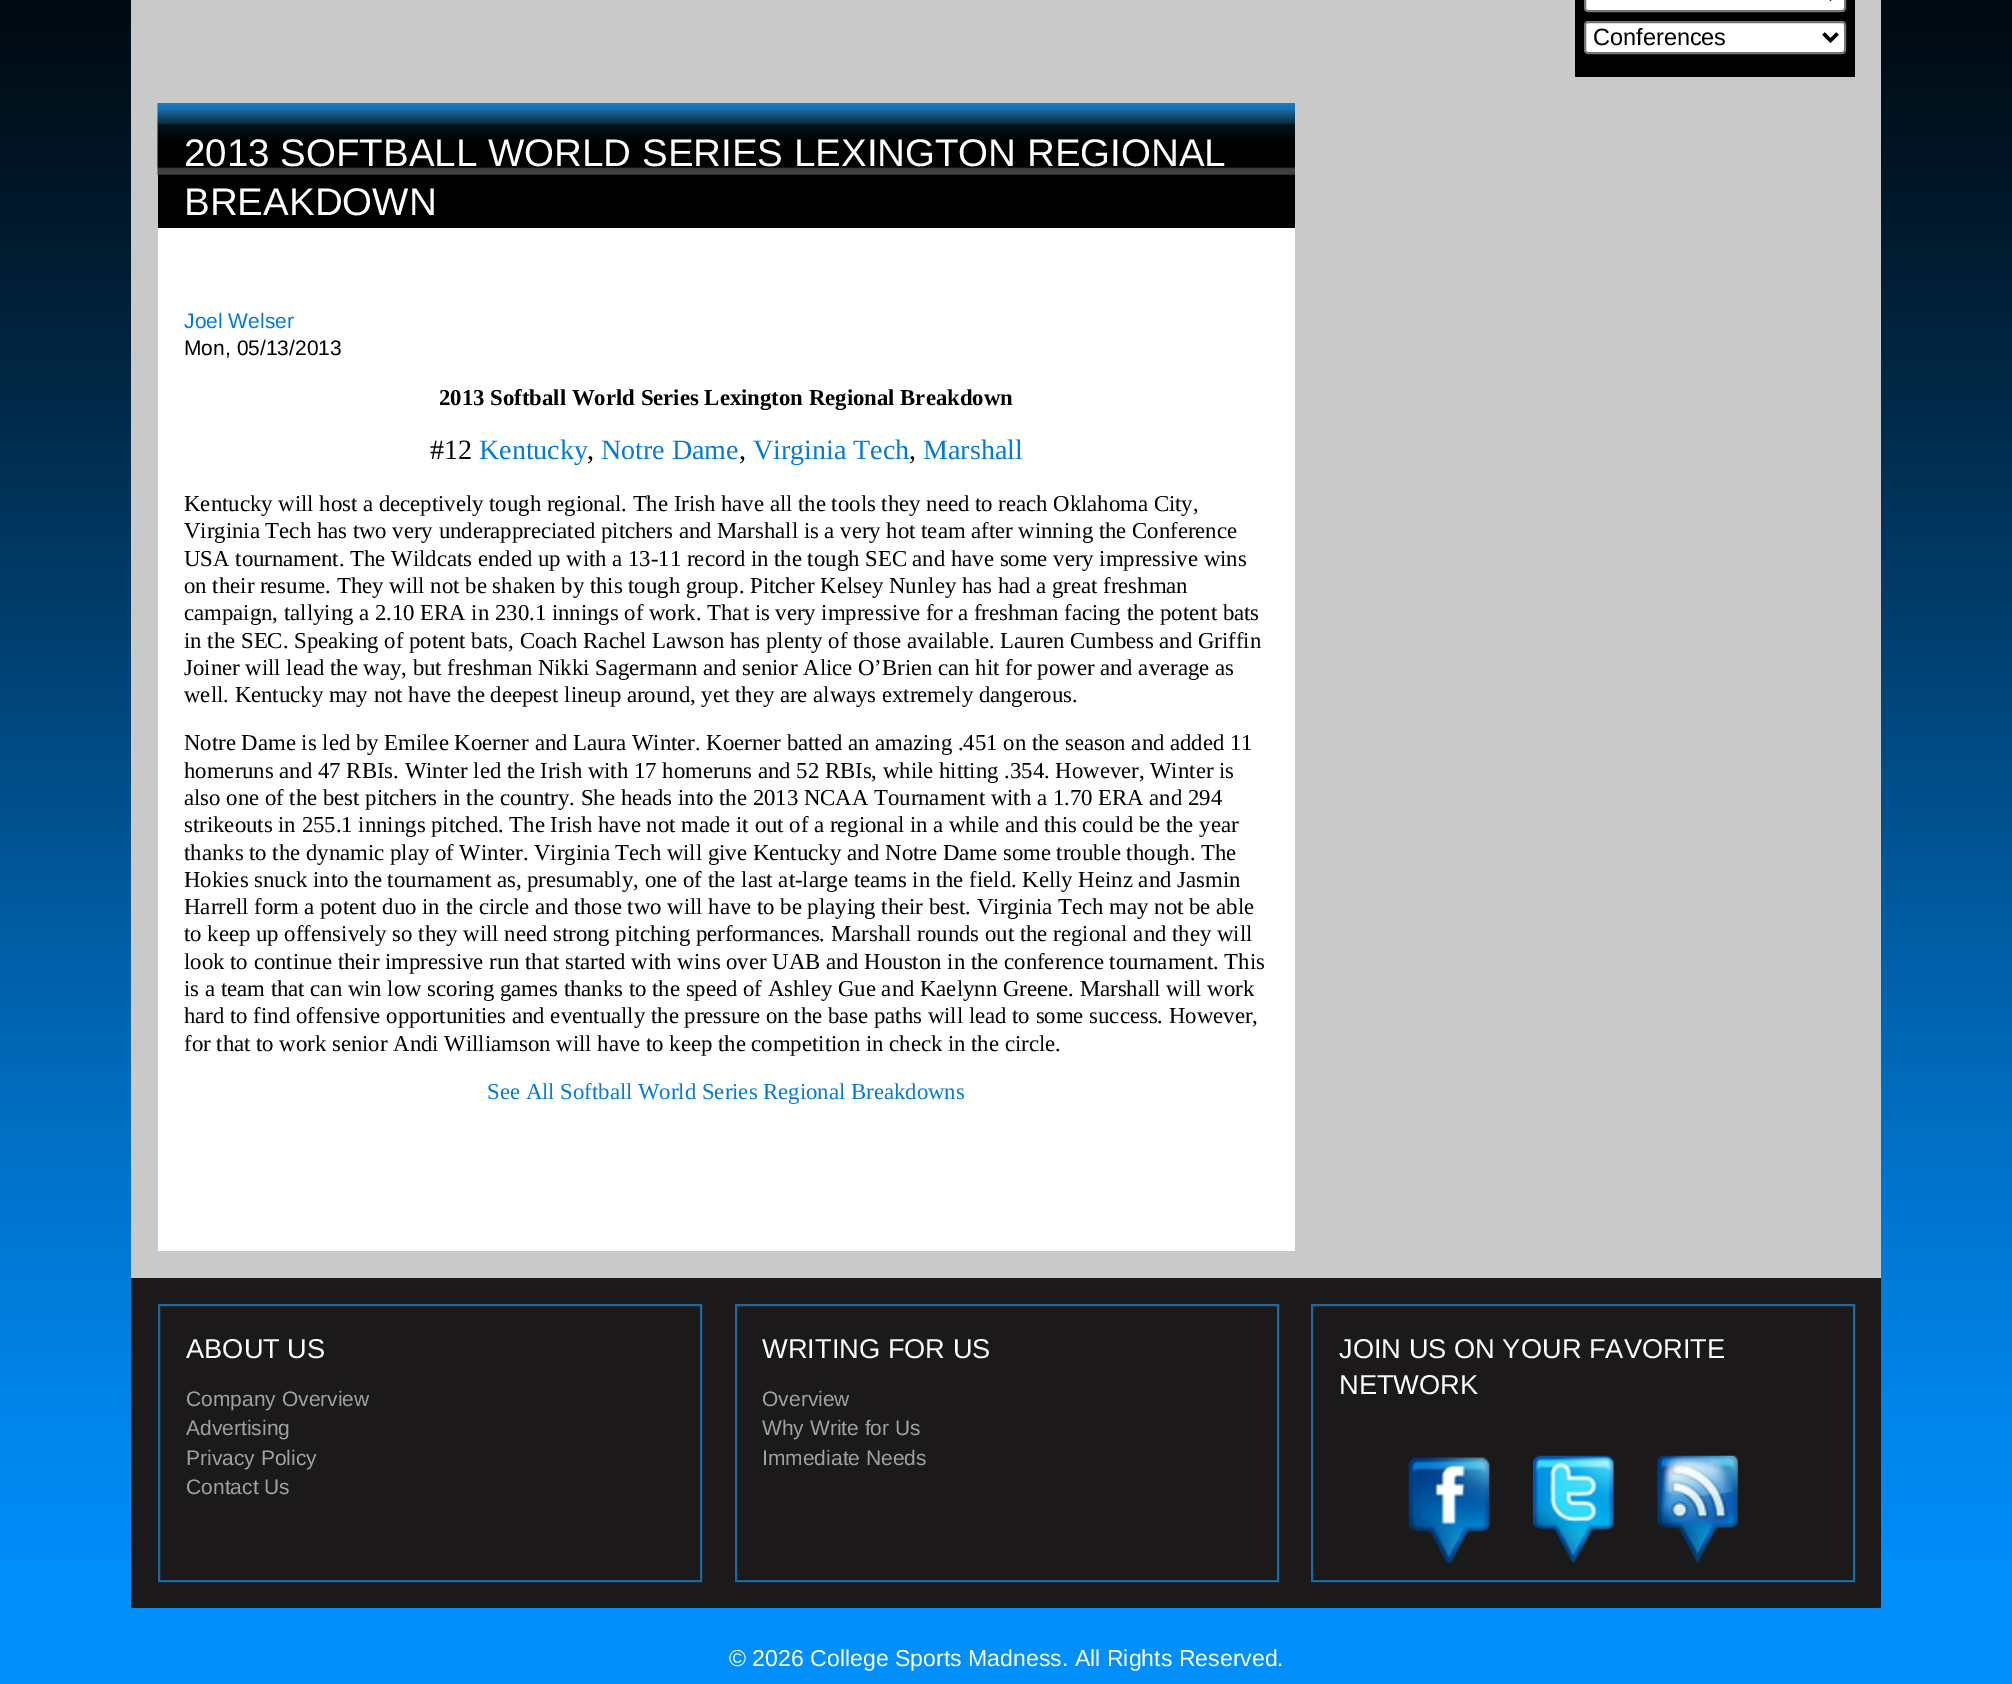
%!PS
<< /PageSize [2012 1684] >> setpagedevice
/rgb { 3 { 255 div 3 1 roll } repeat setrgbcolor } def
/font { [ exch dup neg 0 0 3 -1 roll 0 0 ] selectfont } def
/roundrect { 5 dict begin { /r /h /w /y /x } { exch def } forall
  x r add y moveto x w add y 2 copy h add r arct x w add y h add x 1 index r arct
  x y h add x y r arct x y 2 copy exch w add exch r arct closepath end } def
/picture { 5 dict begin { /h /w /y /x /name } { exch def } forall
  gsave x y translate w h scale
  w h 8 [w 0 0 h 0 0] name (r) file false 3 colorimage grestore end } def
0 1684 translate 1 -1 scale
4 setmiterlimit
0 143 251 rgb
0 0 2012 1684 rectfill
(img/1.rgb) 0 0 2012 1560 picture
201 201 201 rgb
131 0 1750 1278 rectfill
0 0 0 rgb
1575 0 280 77 rectfill
255 255 255 rgb
1585 -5 260 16 3 roundrect gsave fill grestore
118 118 118 rgb
2 setlinewidth
stroke
0 0 0 rgb
3.5 setlinewidth
1823.5 -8.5 moveto 1830.5 -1.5 lineto 1837.5 -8.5 lineto stroke
255 255 255 rgb
1585 22 260 31 3 roundrect gsave fill grestore
118 118 118 rgb
2 setlinewidth
stroke
0 0 0 rgb
3.5 setlinewidth
1823.5 33.5 moveto 1830.5 40.5 lineto 1837.5 33.5 lineto stroke
158 174 1137 54 rectfill
(img/2.rgb) 157 103 1138 72 picture
255 255 255 rgb
158 228 1137 1023 rectfill
27 25 26 rgb
131 1278 1750 330 rectfill
29 104 161 rgb
2 setlinewidth
159 1305 542 276 rectstroke
736 1305 542 276 rectstroke
1312 1305 542 276 rectstroke
(img/3.rgb) 1408 1457 82 106 picture
(img/4.rgb) 1533 1455 81 108 picture
(img/5.rgb) 1657 1455 81 108 picture
/LiberationSans-Regular 23.5 font
0 0 0 rgb
1593 45 moveto (Conferences) show
/LiberationSans-Regular 38.5 font
255 255 255 rgb
184 166 moveto (2013 SOFTBALL WORLD SERIES LEXINGTON REGIONAL) show
184 215 moveto (BREAKDOWN) show
/LiberationSans-Regular 21 font
3 122 214 rgb
184 328 moveto (Joel Welser) show
0 0 0 rgb
184 355 moveto (Mon, 05/13/2013) show
/LiberationSerif-Bold 22.75 font
439 405 moveto (2013 Softball World Series Lexington Regional Breakdown) show
/LiberationSerif-Regular 28 font
430 459 moveto (#12) show
3 122 214 rgb
479 459 moveto (Kentucky) show
0 0 0 rgb
587 459 moveto (,) show
3 122 214 rgb
601 459 moveto (Notre Dame) show
0 0 0 rgb
739 459 moveto (,) show
3 122 214 rgb
753 459 moveto (Virginia Tech) show
0 0 0 rgb
909 459 moveto (,) show
3 122 214 rgb
923 459 moveto (Marshall) show
/LiberationSerif-Regular 22.75 font
0 0 0 rgb
[
  [(Kentucky will host a deceptively tough regional. The Irish have all the tools they need to reach Oklahoma City,) 184 511]
  [(Virginia Tech has two very underappreciated pitchers and Marshall is a very hot team after winning the Conference) 184 538]
  [(USA tournament. The Wildcats ended up with a 13-11 record in the tough SEC and have some very impressive wins) 184 566]
  [(on their resume. They will not be shaken by this tough group. Pitcher Kelsey Nunley has had a great freshman) 184 593]
  [(campaign, tallying a 2.10 ERA in 230.1 innings of work. That is very impressive for a freshman facing the potent bats) 184 620]
  [(in the SEC. Speaking of potent bats, Coach Rachel Lawson has plenty of those available. Lauren Cumbess and Griffin) 184 648]
  [(Joiner will lead the way, but freshman Nikki Sagermann and senior Alice O’Brien can hit for power and average as) 184 675]
  [(well. Kentucky may not have the deepest lineup around, yet they are always extremely dangerous.) 184 702]
  [(Notre Dame is led by Emilee Koerner and Laura Winter. Koerner batted an amazing .451 on the season and added 11) 184 750]
  [(homeruns and 47 RBIs. Winter led the Irish with 17 homeruns and 52 RBIs, while hitting .354. However, Winter is) 184 778]
  [(also one of the best pitchers in the country. She heads into the 2013 NCAA Tournament with a 1.70 ERA and 294) 184 805]
  [(strikeouts in 255.1 innings pitched. The Irish have not made it out of a regional in a while and this could be the year) 184 832]
  [(thanks to the dynamic play of Winter. Virginia Tech will give Kentucky and Notre Dame some trouble though. The) 184 860]
  [(Hokies snuck into the tournament as, presumably, one of the last at-large teams in the field. Kelly Heinz and Jasmin) 184 887]
  [(Harrell form a potent duo in the circle and those two will have to be playing their best. Virginia Tech may not be able) 184 914]
  [(to keep up offensively so they will need strong pitching performances. Marshall rounds out the regional and they will) 184 941]
  [(look to continue their impressive run that started with wins over UAB and Houston in the conference tournament. This) 184 969]
  [(is a team that can win low scoring games thanks to the speed of Ashley Gue and Kaelynn Greene. Marshall will work) 184 996]
  [(hard to find offensive opportunities and eventually the pressure on the base paths will lead to some success. However,) 184 1023]
  [(for that to work senior Andi Williamson will have to keep the competition in check in the circle.) 184 1051]
] { aload pop moveto show } forall
3 122 214 rgb
487 1099 moveto (See All Softball World Series Regional Breakdowns) show
/LiberationSans-Regular 27.25 font
255 255 255 rgb
186 1358 moveto (ABOUT US) show
/LiberationSans-Regular 21 font
162 161 161 rgb
[
  [(Company Overview) 186 1406]
  [(Advertising) 186 1435]
  [(Privacy Policy) 186 1465]
  [(Contact Us) 186 1494]
] { aload pop moveto show } forall
/LiberationSans-Regular 27.25 font
255 255 255 rgb
762 1358 moveto (WRITING FOR US) show
/LiberationSans-Regular 21 font
162 161 161 rgb
[
  [(Overview) 762 1406]
  [(Why Write for Us) 762 1435]
  [(Immediate Needs) 762 1465]
] { aload pop moveto show } forall
/LiberationSans-Regular 27.25 font
255 255 255 rgb
1339 1358 moveto (JOIN US ON YOUR FAVORITE) show
1339 1394 moveto (NETWORK) show
/LiberationSans-Regular 23.1 font
729 1666 moveto (© 2026 College Sports Madness. All Rights Reserved.) show
showpage
